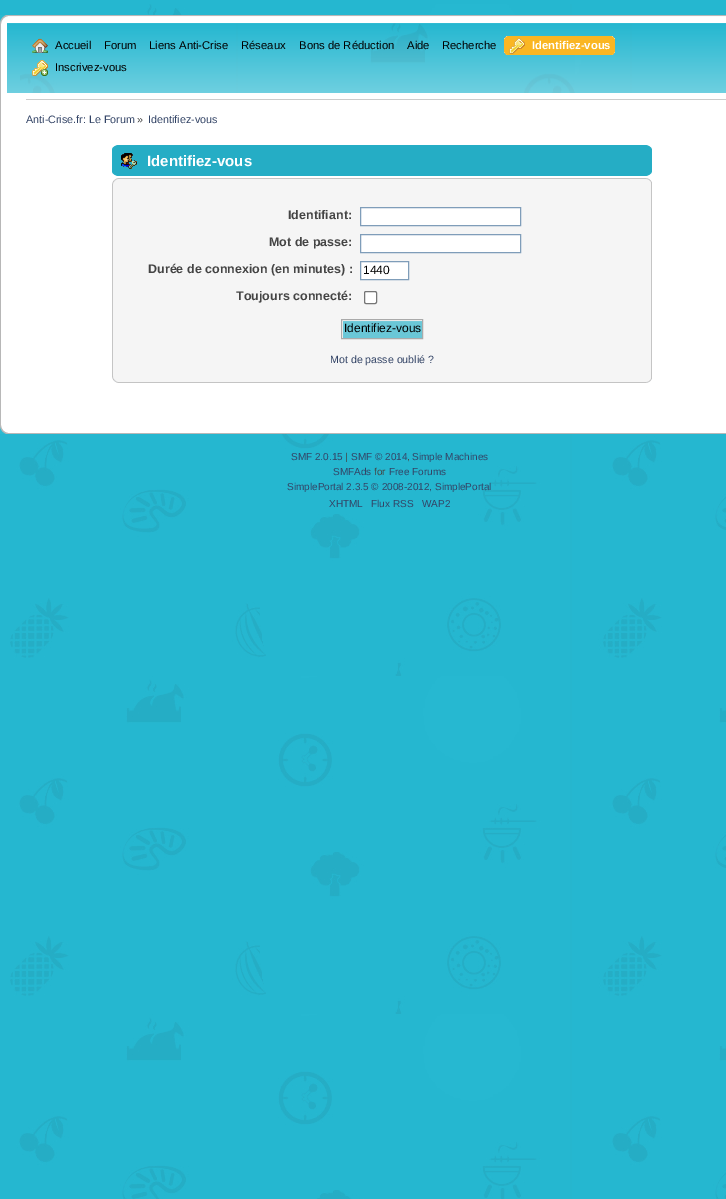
%!PS
<< /PageSize [726 1199] >> setpagedevice
/rgb { 3 { 255 div 3 1 roll } repeat setrgbcolor } def
/font { [ exch dup neg 0 0 3 -1 roll 0 0 ] selectfont } def
/roundrect { 5 dict begin { /r /h /w /y /x } { exch def } forall
  x r add y moveto x w add y 2 copy h add r arct x w add y h add x 1 index r arct
  x y h add x y r arct x y 2 copy exch w add exch r arct closepath end } def
/picture { 5 dict begin { /h /w /y /x /name } { exch def } forall
  gsave x y translate w h scale
  w h 8 [w 0 0 h 0 0] name (r) file false 3 colorimage grestore end } def
0 1199 translate 1 -1 scale
4 setmiterlimit
37 183 208 rgb
0 0 726 1199 rectfill
(img/1.rgb) 10 4 716 1195 picture
(img/2.rgb) 0 15 726 78 picture
(img/3.rgb) 20 23 555 70 picture
(img/4.rgb) 32 38 16 15 picture
(img/5.rgb) 509 36 106 19 picture
(img/6.rgb) 504 36 5 19 picture
(img/7.rgb) 509 38 16 16 picture
(img/8.rgb) 32 60 16 16 picture
[
  [1 93 725 297 255 255 255]
  [0 93 1 297 183 183 183]
  [26 99 700 1 204 204 204]
] { aload pop rgb rectfill } forall
(img/9.rgb) 112 145 534 31 picture
(img/10.rgb) 646 145 6 31 picture
(img/11.rgb) 121 153 16 16 picture
(img/12.rgb) 112 178 534 11 picture
(img/13.rgb) 646 178 6 11 picture
[
  [113 189 538 183 245 245 245]
  [651 189 1 183 197 197 197]
  [112 189 1 183 197 197 197]
] { aload pop rgb rectfill } forall
255 255 255 rgb
360.5 207.5 moveto 520.5 207.5 lineto 520.5 225.5 lineto 360.5 225.5 lineto closepath gsave fill grestore
127 157 185 rgb
stroke
255 255 255 rgb
360.5 234.5 moveto 520.5 234.5 lineto 520.5 252.5 lineto 360.5 252.5 lineto closepath gsave fill grestore
127 157 185 rgb
stroke
255 255 255 rgb
360.5 261.5 moveto 408.5 261.5 lineto 408.5 279.5 lineto 360.5 279.5 lineto closepath gsave fill grestore
127 157 185 rgb
stroke
255 255 255 rgb
364.5 291.5 12 12 1.5 roundrect gsave fill grestore
118 118 118 rgb
stroke
(img/14.rgb) 342 320 80 18 picture
170 170 170 rgb
341.5 319.5 81 19 rectstroke
(img/15.rgb) 112 372 534 11 picture
(img/16.rgb) 646 372 6 11 picture
(img/17.rgb) 0 390 726 44 picture
/LiberationSans-Regular 11.25 font
0 0 0 rgb
[
  [(Accueil) 55 49]
  [(Forum) 104 49]
  [(Liens Anti-Crise) 149 49]
  [(Réseaux) 241 49]
  [(Bons de Réduction) 299 49]
  [(Aide) 407 49]
  [(Recherche) 442 49]
] { aload pop moveto show } forall
/LiberationSans-Bold 11.25 font
255 255 255 rgb
532 49 moveto (Identifiez-vous) show
/LiberationSans-Regular 11.25 font
0 0 0 rgb
55 71 moveto (Inscrivez-vous) show
/LiberationSans-Regular 10.75 font
51 68 102 rgb
26 123 moveto (Anti-Crise.fr: Le Forum) show
68 68 68 rgb
137 123 moveto (») show
51 68 102 rgb
148 123 moveto (Identifiez-vous) show
/LiberationSans-Bold 15 font
255 255 255 rgb
147 166 moveto (Identifiez-vous) show
/LiberationSans-Bold 12.5 font
68 68 68 rgb
[
  [(Identifiant:) 288 219]
  [(Mot de passe:) 269 246]
  [(Durée de connexion \(en minutes\) :) 148 273]
] { aload pop moveto show } forall
/LiberationSans-Regular 12 font
0 0 0 rgb
363 274 moveto (1440) show
/LiberationSans-Bold 12.5 font
68 68 68 rgb
236 300 moveto (Toujours connecté:) show
/LiberationSans-Regular 12 font
0 0 0 rgb
344 332 moveto (Identifiez-vous) show
/LiberationSans-Regular 10.6 font
51 68 102 rgb
330 363 moveto (Mot de passe oublié ?) show
/LiberationSans-Regular 10 font
291 460 moveto (SMF 2.0.15) show
68 68 68 rgb
345 460 moveto (|) show
51 68 102 rgb
351 460 moveto (SMF © 2014) show
68 68 68 rgb
407 460 moveto (,) show
51 68 102 rgb
412 460 moveto (Simple Machines) show
333 475 moveto (SMFAds) show
68 68 68 rgb
374 475 moveto (for) show
51 68 102 rgb
[
  [(Free Forums) 389 475]
  [(SimplePortal 2.3.5 © 2008-2012, SimplePortal) 287 490]
  [(XHTML) 329 507]
  [(Flux RSS) 371 507]
  [(WAP2) 422 507]
] { aload pop moveto show } forall
showpage
